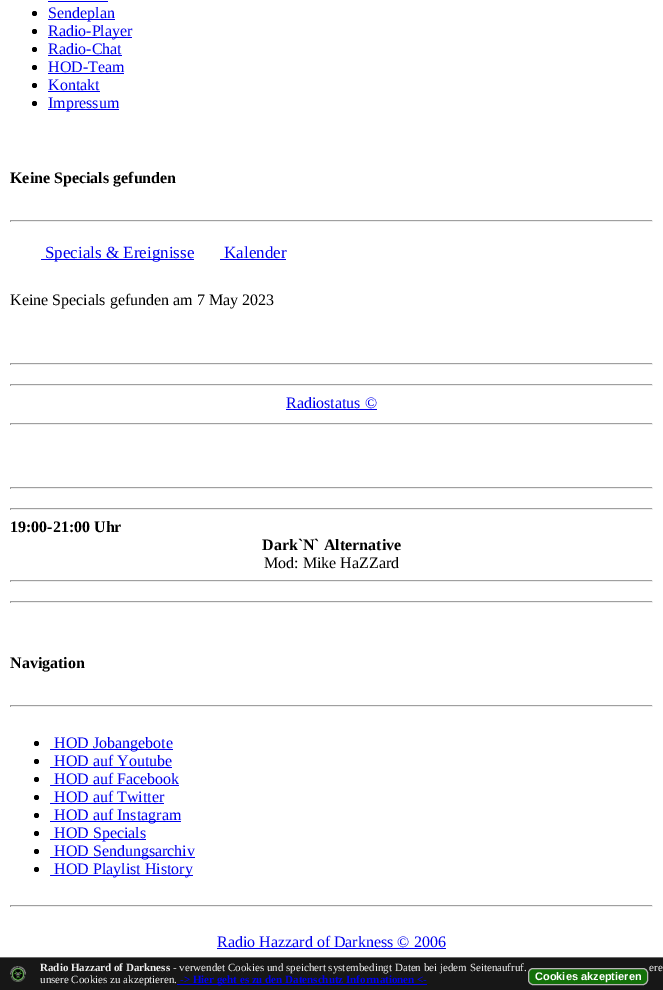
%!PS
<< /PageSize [663 990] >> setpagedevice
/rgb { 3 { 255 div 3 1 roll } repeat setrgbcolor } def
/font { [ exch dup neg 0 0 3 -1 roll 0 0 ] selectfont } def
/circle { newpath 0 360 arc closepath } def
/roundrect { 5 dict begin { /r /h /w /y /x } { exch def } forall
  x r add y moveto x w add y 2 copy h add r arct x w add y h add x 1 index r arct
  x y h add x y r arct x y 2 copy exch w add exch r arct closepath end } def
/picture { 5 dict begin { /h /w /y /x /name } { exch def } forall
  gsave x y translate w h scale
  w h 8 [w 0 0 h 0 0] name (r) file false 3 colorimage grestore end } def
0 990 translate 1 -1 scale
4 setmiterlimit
255 255 255 rgb
0 0 663 990 rectfill
0 0 238 rgb
48 1 60 1 rectfill
0 0 0 rgb
34.5 13.5 2.5 circle fill
0 0 238 rgb
48 19 67 1 rectfill
0 0 0 rgb
34.5 31.5 2.5 circle fill
0 0 238 rgb
48 37 84 1 rectfill
0 0 0 rgb
34.5 49.5 2.5 circle fill
0 0 238 rgb
48 55 74 1 rectfill
0 0 0 rgb
34.5 67.5 2.5 circle fill
0 0 238 rgb
48 73 76 1 rectfill
0 0 0 rgb
34.5 85.5 2.5 circle fill
0 0 238 rgb
48 91 52 1 rectfill
0 0 0 rgb
34.5 103.5 2.5 circle fill
[
  [48 109 71 1 0 0 238]
  [10 220 643 1 159 159 159]
  [652 220 1 2 238 238 238]
  [10 221 643 1 238 238 238]
  [10 220 1 2 159 159 159]
  [41 259 153 1 0 0 238]
  [220 259 66 1 0 0 238]
  [0 958 663 32 23 23 23]
] { aload pop rgb rectfill } forall
(img/1.rgb) 10 966 16 16 picture
107 107 107 rgb
0 957 663 1 rectfill
0 0 238 rgb
177 984 250 1 rectfill
19 112 9 rgb
528.5 968.5 119 16 4.5 roundrect gsave fill grestore
183 181 181 rgb
stroke
[
  [10 363 643 1 159 159 159]
  [652 363 1 2 238 238 238]
  [10 364 643 1 238 238 238]
  [10 363 1 2 159 159 159]
  [10 384 643 1 159 159 159]
  [652 384 1 2 238 238 238]
  [10 385 643 1 238 238 238]
  [10 384 1 2 159 159 159]
  [286 409 91 1 0 0 238]
  [10 423 643 1 159 159 159]
  [652 423 1 2 238 238 238]
  [10 424 643 1 238 238 238]
  [10 423 1 2 159 159 159]
  [10 487 643 1 159 159 159]
  [652 487 1 2 238 238 238]
  [10 488 643 1 238 238 238]
  [10 487 1 2 159 159 159]
  [10 508 643 1 159 159 159]
  [652 508 1 2 238 238 238]
  [10 509 643 1 238 238 238]
  [10 508 1 2 159 159 159]
  [10 580 643 1 159 159 159]
  [652 580 1 2 238 238 238]
  [10 581 643 1 238 238 238]
  [10 580 1 2 159 159 159]
  [10 601 643 1 159 159 159]
  [652 601 1 2 238 238 238]
  [10 602 643 1 238 238 238]
  [10 601 1 2 159 159 159]
  [10 705 643 1 159 159 159]
  [652 705 1 2 238 238 238]
  [10 706 643 1 238 238 238]
  [10 705 1 2 159 159 159]
] { aload pop rgb rectfill } forall
0 0 0 rgb
36.5 743.5 2.5 circle fill
0 0 238 rgb
50 749 123 1 rectfill
0 0 0 rgb
36.5 761.5 2.5 circle fill
0 0 238 rgb
50 767 122 1 rectfill
0 0 0 rgb
36.5 779.5 2.5 circle fill
0 0 238 rgb
50 785 129 1 rectfill
0 0 0 rgb
36.5 797.5 2.5 circle fill
0 0 238 rgb
50 803 114 1 rectfill
0 0 0 rgb
36.5 815.5 2.5 circle fill
0 0 238 rgb
50 821 131 1 rectfill
0 0 0 rgb
36.5 833.5 2.5 circle fill
0 0 238 rgb
50 839 96 1 rectfill
0 0 0 rgb
36.5 851.5 2.5 circle fill
0 0 238 rgb
50 857 145 1 rectfill
0 0 0 rgb
36.5 869.5 2.5 circle fill
[
  [50 875 143 1 0 0 238]
  [10 905 643 1 159 159 159]
  [652 905 1 2 238 238 238]
  [10 906 643 1 238 238 238]
  [10 905 1 2 159 159 159]
  [217 948 229 1 0 0 238]
] { aload pop rgb rectfill } forall
/LiberationSerif-Regular 16 font
[
  [(Sendeplan) 48 18]
  [(Radio-Player) 48 36]
  [(Radio-Chat) 48 54]
  [(HOD-Team) 48 72]
  [(Kontakt) 48 90]
  [(Impressum) 48 108]
] { aload pop moveto show } forall
/LiberationSerif-Bold 16 font
0 0 0 rgb
10 183 moveto (Keine Specials gefunden) show
/LiberationSerif-Regular 17 font
0 0 238 rgb
45 258 moveto (Specials & Ereignisse) show
224 258 moveto (Kalender) show
/LiberationSerif-Regular 16 font
0 0 0 rgb
10 305 moveto (Keine Specials gefunden am 7 May 2023) show
/LiberationSerif-Bold 11 font
238 238 238 rgb
40 971 moveto (Radio Hazzard of Darkness) show
/LiberationSerif-Regular 11 font
[
  [(- verwendet Cookies und speichert systembedingt Daten bei jedem Seitenaufruf.) 173 971]
  [(ere) 649 971]
  [(unsere Cookies zu akzeptieren.) 40 983]
] { aload pop moveto show } forall
/LiberationSerif-Bold 11 font
0 0 238 rgb
180 983 moveto (-> Hier geht es zu den Datenschutz Informationen <-) show
/LiberationSans-Bold 11 font
255 255 255 rgb
535 980 moveto (Cookies akzeptieren) show
/LiberationSerif-Regular 16 font
0 0 238 rgb
286 408 moveto (Radiostatus ©) show
/LiberationSerif-Bold 16 font
0 0 0 rgb
10 532 moveto (19:00-21:00 Uhr) show
262 550 moveto (Dark`N` Alternative) show
/LiberationSerif-Regular 16 font
264 568 moveto (Mod: Mike HaZZard) show
/LiberationSerif-Bold 16 font
10 668 moveto (Navigation) show
/LiberationSerif-Regular 16 font
0 0 238 rgb
[
  [(HOD Jobangebote) 54 748]
  [(HOD auf Youtube) 54 766]
  [(HOD auf Facebook) 54 784]
  [(HOD auf Twitter) 54 802]
  [(HOD auf Instagram) 54 820]
  [(HOD Specials) 54 838]
  [(HOD Sendungsarchiv) 54 856]
  [(HOD Playlist History) 54 874]
  [(Radio Hazzard of Darkness © 2006) 217 947]
] { aload pop moveto show } forall
showpage
